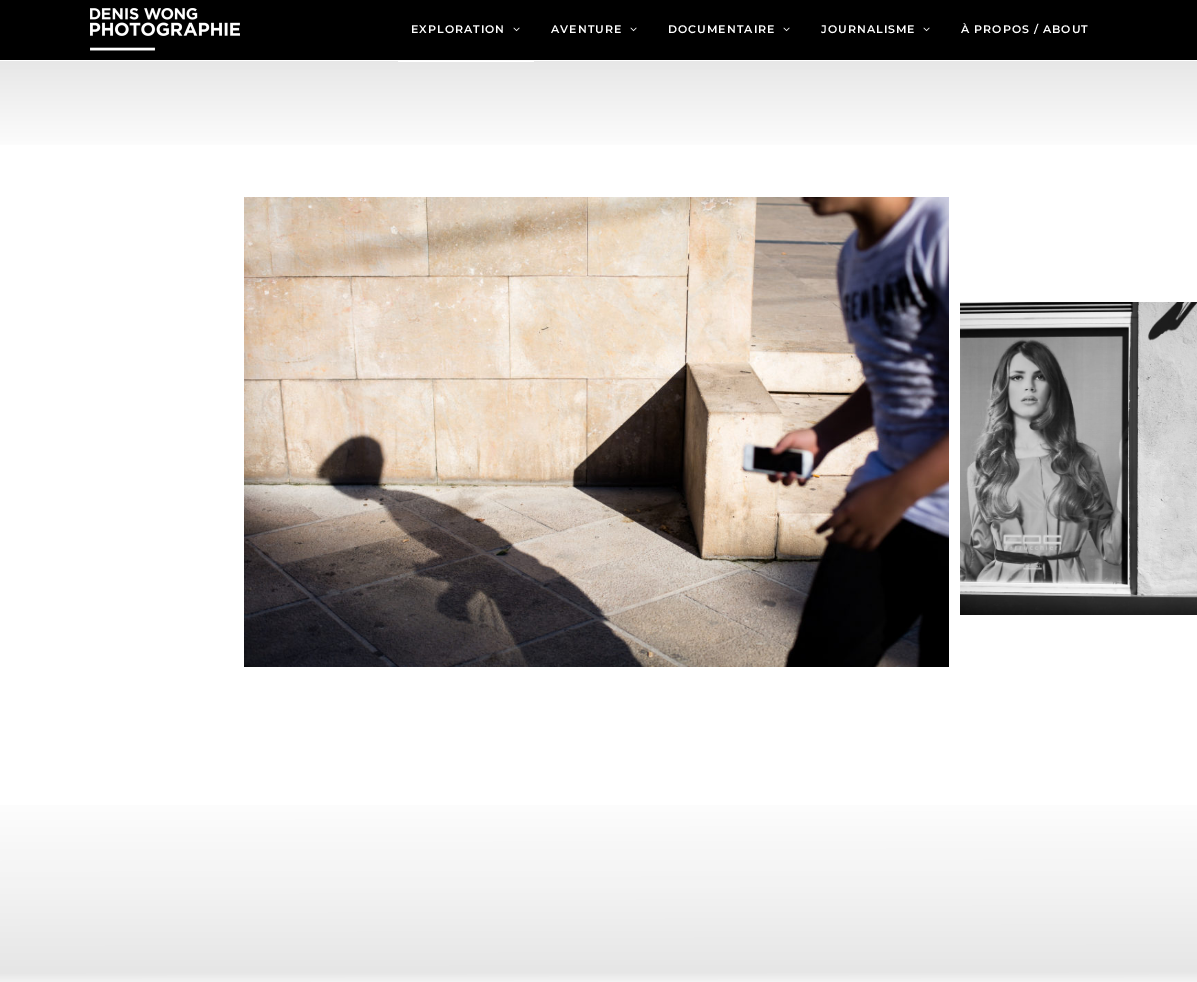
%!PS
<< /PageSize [1197 982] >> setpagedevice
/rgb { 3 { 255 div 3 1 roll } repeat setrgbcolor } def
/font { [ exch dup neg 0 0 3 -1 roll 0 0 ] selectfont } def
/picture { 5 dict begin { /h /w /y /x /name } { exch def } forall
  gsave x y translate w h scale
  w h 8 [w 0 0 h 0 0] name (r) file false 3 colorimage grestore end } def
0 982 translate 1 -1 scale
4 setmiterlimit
255 255 255 rgb
0 0 1197 982 rectfill
gsave 0 805 moveto 1197 805 lineto 1197 982 lineto 0 982 lineto closepath clip newpath
<< /ShadingType 2 /ColorSpace /DeviceRGB /Coords [598 0 599 982] /Extend [true true] /Function << /FunctionType 3 /Domain [0 1] /Functions [<< /FunctionType 2 /Domain [0 1] /C0 [1 1 1] /C1 [1 1 1] /N 1 >> << /FunctionType 2 /Domain [0 1] /C0 [1 1 1] /C1 [0.953 0.953 0.953] /N 1 >> << /FunctionType 2 /Domain [0 1] /C0 [0.953 0.953 0.953] /C1 [0.902 0.902 0.902] /N 1 >> << /FunctionType 2 /Domain [0 1] /C0 [0.902 0.902 0.902] /C1 [0.953 0.953 0.953] /N 1 >>] /Bounds [0.8 0.9 0.99] /Encode [0 1 0 1 0 1 0 1] >> >> shfill grestore
gsave 0 61 moveto 1197 61 lineto 1197 145 lineto 0 145 lineto closepath clip newpath
<< /ShadingType 2 /ColorSpace /DeviceRGB /Coords [599 0 599 160] /Extend [true true] /Function << /FunctionType 3 /Domain [0 1] /Functions [<< /FunctionType 2 /Domain [0 1] /C0 [0.902 0.902 0.902] /C1 [0.902 0.902 0.902] /N 1 >> << /FunctionType 2 /Domain [0 1] /C0 [0.902 0.902 0.902] /C1 [1 1 1] /N 1 >> << /FunctionType 2 /Domain [0 1] /C0 [1 1 1] /C1 [1 1 1] /N 1 >>] /Bounds [0.35 0.97] /Encode [0 1 0 1 0 1] >> >> shfill grestore
0 0 0 rgb
0 0 1197 60 rectfill
(img/1.rgb) 90 8 150 43 picture
255 255 255 rgb
398 61 136 1 rectfill
(img/2.rgb) 513 27 7 5 picture
(img/2.rgb) 630 27 7 5 picture
(img/2.rgb) 783 27 7 5 picture
(img/2.rgb) 923 27 7 5 picture
(img/3.rgb) 244 197 705 470 picture
(img/4.rgb) 960 302 237 313 picture
/Montserrat-SemiBold 11 font
411 33 moveto 1 0 (EXPLORATION) ashow
551 33 moveto 1 0 (AVENTURE) ashow
668 33 moveto 1 0 (DOCUMENTAIRE) ashow
821 33 moveto 1 0 (JOURNALISME) ashow
961 33 moveto 1 0 (À PROPOS / ABOUT) ashow
showpage
